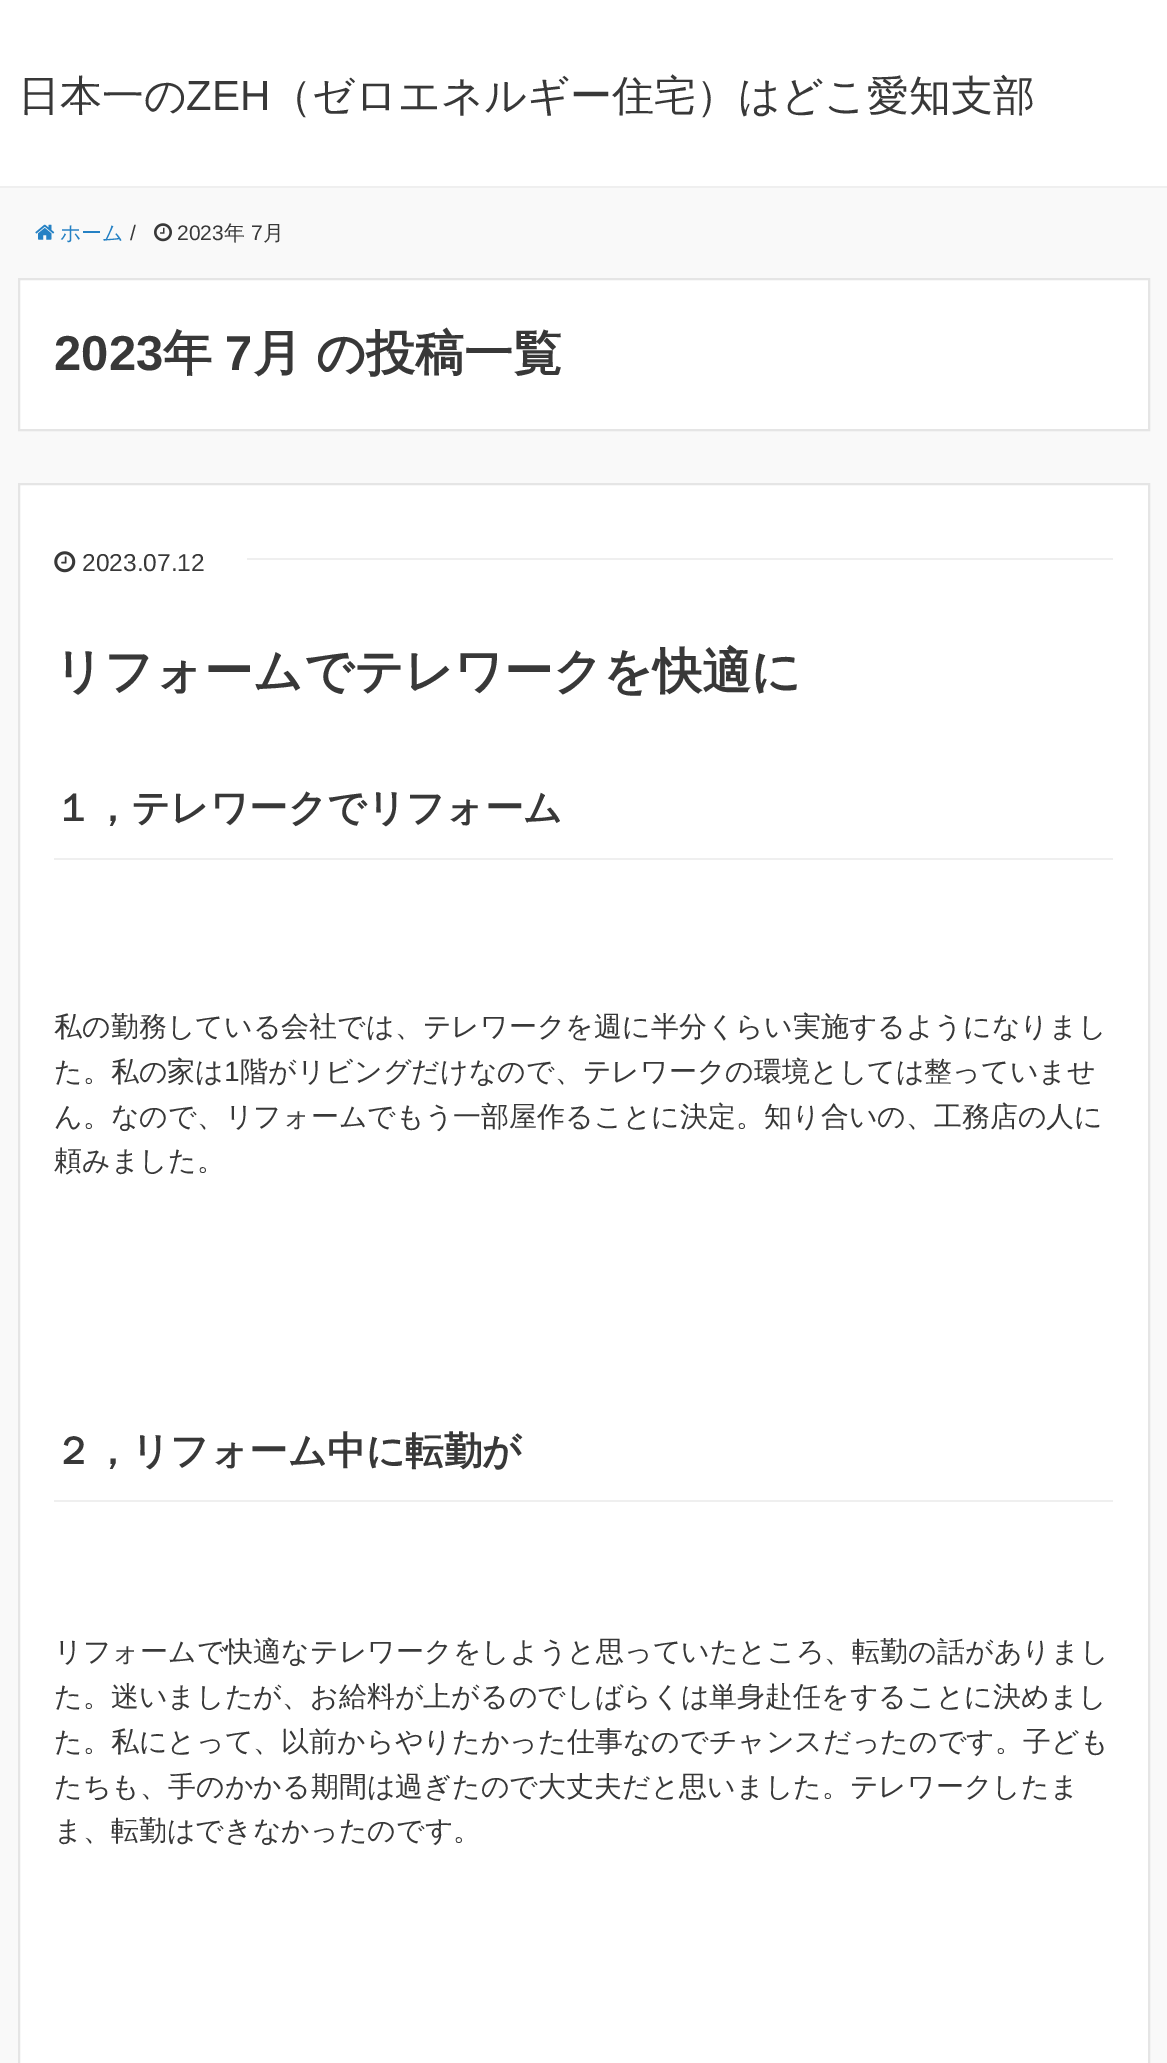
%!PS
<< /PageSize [1167 2063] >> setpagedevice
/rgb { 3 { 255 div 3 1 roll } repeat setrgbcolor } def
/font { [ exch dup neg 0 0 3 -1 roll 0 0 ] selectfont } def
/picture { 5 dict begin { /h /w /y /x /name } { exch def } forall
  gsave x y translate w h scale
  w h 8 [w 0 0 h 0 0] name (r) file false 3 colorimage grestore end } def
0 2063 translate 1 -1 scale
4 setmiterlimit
249 249 249 rgb
0 0 1167 2063 rectfill
255 255 255 rgb
0 0 1167 186 rectfill
239 239 239 rgb
0 186 1167 2 rectfill
(img/1.rgb) 35 224 20 16 picture
(img/2.rgb) 154 223 18 19 picture
255 255 255 rgb
19 279 moveto 1149 279 lineto 1149 430 lineto 19 430 lineto closepath gsave fill grestore
229 229 229 rgb
2 setlinewidth
stroke
255 255 255 rgb
19 484 moveto 1149 484 lineto 1149 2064 lineto 19 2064 lineto closepath gsave fill grestore
229 229 229 rgb
stroke
239 239 239 rgb
247 558 866 2 rectfill
(img/3.rgb) 54 551 22 22 picture
54 858 1059 2 rectfill
54 1500 1059 2 rectfill
/WenQuanYiZenHei-Medium 42 font
56 56 56 rgb
18 110 moveto (日本一の) show
/LiberationSans-Regular 42 font
186 110 moveto (ZEH) show
/WenQuanYiZenHei-Medium 42 font
270 110 moveto (（ゼロエネルギー住宅）はどこ愛知支部) show
/WenQuanYiZenHei-Medium 21 font
37 129 196 rgb
60 240 moveto (ホーム) show
/LiberationSans-Regular 21 font
56 56 56 rgb
130 240 moveto (/) show
177 240 moveto (2023) show
/WenQuanYiZenHei-Medium 21 font
224 240 moveto (年) show
/LiberationSans-Regular 21 font
251 240 moveto (7) show
/WenQuanYiZenHei-Medium 21 font
263 240 moveto (月) show
/LiberationSans-Bold 49 font
54 370 moveto (2023) show
/WenQuanYiZenHei-Bold 49 font
163 370 moveto (年) show
/LiberationSans-Bold 49 font
225 370 moveto (7) show
/WenQuanYiZenHei-Bold 49 font
253 370 moveto -1 0 32 (月 の投稿一覧) widthshow
/LiberationSans-Regular 24.5 font
82 571 moveto (2023.07.12) show
/WenQuanYiZenHei-Bold 49 font
54 688 moveto (リフォームでテレワークを快適に) show
/WenQuanYiZenHei-Bold 38.5 font
54 821 moveto (１，テレワークでリフォーム) show
/WenQuanYiZenHei-Medium 28 font
54 1036 moveto (私の勤務している会社では、テレワークを週に半分くらい実施するようになりまし) show
54 1081 moveto (た。私の家は) show
/LiberationSans-Regular 28 font
224 1081 moveto (1) show
/WenQuanYiZenHei-Medium 28 font
[
  [(階がリビングだけなので、テレワークの環境としては整っていませ) 240 1081]
  [(ん。なので、リフォームでもう一部屋作ることに決定。知り合いの、工務店の人に) 54 1126]
  [(頼みました。) 54 1170]
] { aload pop moveto show } forall
/WenQuanYiZenHei-Bold 38.5 font
54 1464 moveto (２，リフォーム中に転勤が) show
/WenQuanYiZenHei-Medium 28 font
[
  [(リフォームで快適なテレワークをしようと思っていたところ、転勤の話がありまし) 54 1661]
  [(た。迷いましたが、お給料が上がるのでしばらくは単身赴任をすることに決めまし) 54 1706]
  [(た。私にとって、以前からやりたかった仕事なのでチャンスだったのです。子ども) 54 1751]
  [(たちも、手のかかる期間は過ぎたので大丈夫だと思いました。テレワークしたま) 54 1796]
  [(ま、転勤はできなかったのです。) 54 1840]
] { aload pop moveto show } forall
showpage
